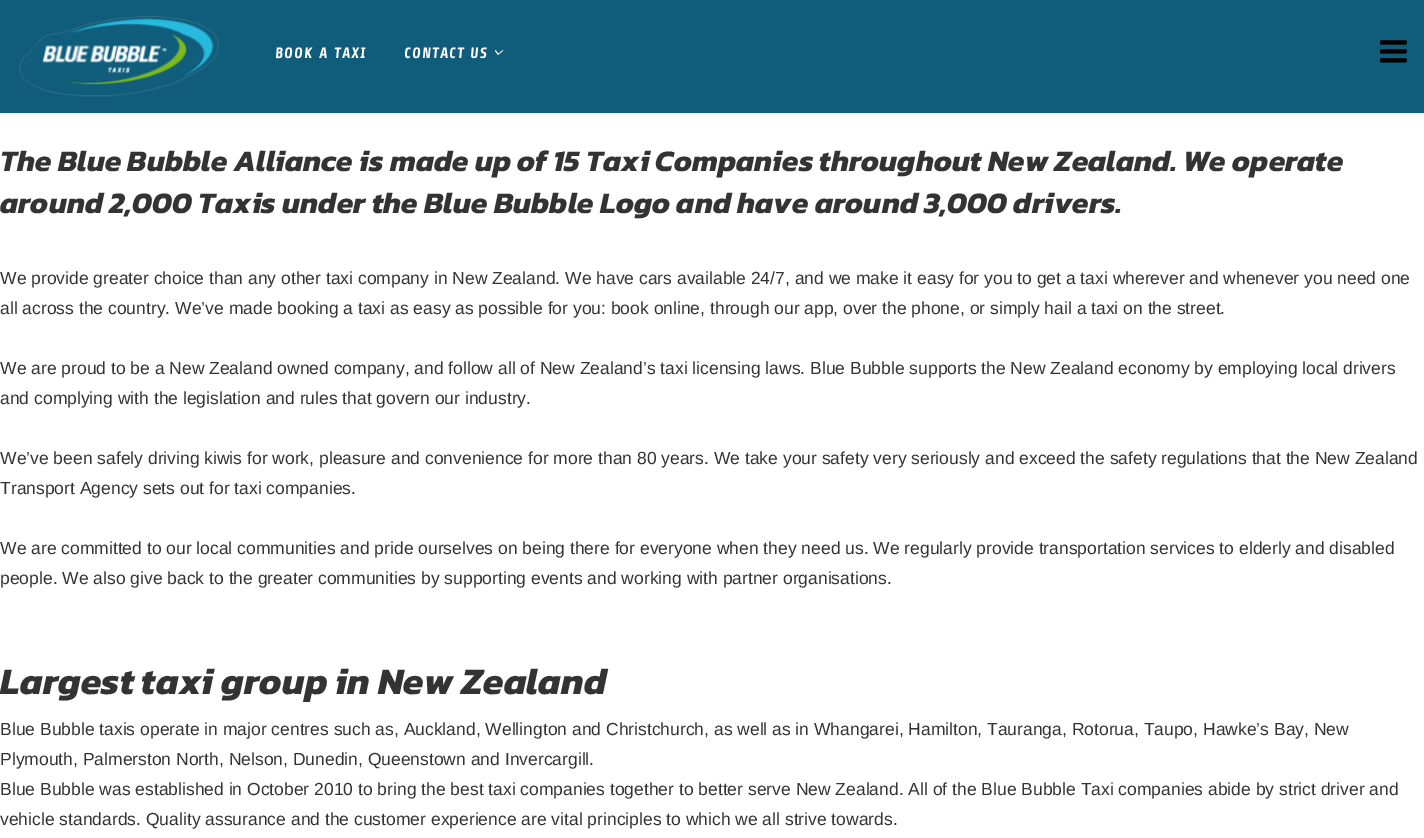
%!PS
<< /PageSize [1424 838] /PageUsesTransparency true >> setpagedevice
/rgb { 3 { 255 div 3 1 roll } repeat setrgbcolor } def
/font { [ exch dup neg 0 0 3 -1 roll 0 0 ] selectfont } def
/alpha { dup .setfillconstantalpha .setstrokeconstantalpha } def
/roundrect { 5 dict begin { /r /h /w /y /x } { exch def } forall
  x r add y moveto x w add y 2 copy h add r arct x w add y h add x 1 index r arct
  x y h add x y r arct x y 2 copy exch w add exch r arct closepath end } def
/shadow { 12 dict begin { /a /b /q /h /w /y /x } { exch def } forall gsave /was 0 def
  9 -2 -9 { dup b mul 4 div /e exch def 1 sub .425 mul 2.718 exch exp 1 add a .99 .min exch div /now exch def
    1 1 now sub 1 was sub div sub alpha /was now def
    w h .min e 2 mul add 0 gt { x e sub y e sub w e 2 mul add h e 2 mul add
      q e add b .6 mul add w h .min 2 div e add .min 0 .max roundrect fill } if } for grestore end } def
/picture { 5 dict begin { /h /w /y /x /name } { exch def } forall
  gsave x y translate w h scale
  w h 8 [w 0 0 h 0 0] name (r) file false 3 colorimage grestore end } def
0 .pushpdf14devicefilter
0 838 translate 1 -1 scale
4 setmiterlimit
255 255 255 rgb
0 0 1424 838 rectfill
0 0 0 rgb
0 4 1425 112 0 2 0.05 shadow
16 93 123 rgb
0 0 1424 113 rectfill
(img/1.rgb) 19 16 200 81 picture
(img/2.rgb) 494 50 10 5 picture
(img/3.rgb) 1380 40 27 23 picture
/Share-BoldItalic 15 font
255 255 255 rgb
275 58 moveto 1.25 0 (BOOK A TAXI) ashow
404 58 moveto 1.25 0 (CONTACT US) ashow
/Kanit-BoldItalic 30 font
51 51 51 rgb
0 171 moveto (The Blue Bubble Alliance is made up of 15 Taxi Companies throughout New Zealand. We operate) show
0 213 moveto (around 2,000 Taxis under the Blue Bubble Logo and have around 3,000 drivers.) show
/LiberationSans-Regular 17.5 font
[
  [(We provide greater choice than any other taxi company in New Zealand. We have cars available 24/7, and we make it easy for you to get a taxi wherever and whenever you need one) 0 284]
  [(all across the country. We’ve made booking a taxi as easy as possible for you: book online, through our app, over the phone, or simply hail a taxi on the street.) 0 314]
  [(We are proud to be a New Zealand owned company, and follow all of New Zealand’s taxi licensing laws. Blue Bubble supports the New Zealand economy by employing local drivers) 0 374]
  [(and complying with the legislation and rules that govern our industry.) 0 404]
  [(We’ve been safely driving kiwis for work, pleasure and convenience for more than 80 years. We take your safety very seriously and exceed the safety regulations that the New Zealand) 0 464]
  [(Transport Agency sets out for taxi companies.) 0 494]
  [(We are committed to our local communities and pride ourselves on being there for everyone when they need us. We regularly provide transportation services to elderly and disabled) 0 554]
  [(people. We also give back to the greater communities by supporting events and working with partner organisations.) 0 584]
] { aload pop moveto show } forall
/Kanit-BoldItalic 37.5 font
0 694 moveto (Largest taxi group in New Zealand) show
/LiberationSans-Regular 17.5 font
[
  [(Blue Bubble taxis operate in major centres such as, Auckland, Wellington and Christchurch, as well as in Whangarei, Hamilton, Tauranga, Rotorua, Taupo, Hawke’s Bay, New) 0 735]
  [(Plymouth, Palmerston North, Nelson, Dunedin, Queenstown and Invercargill.) 0 765]
  [(Blue Bubble was established in October 2010 to bring the best taxi companies together to better serve New Zealand. All of the Blue Bubble Taxi companies abide by strict driver and) 0 795]
  [(vehicle standards. Quality assurance and the customer experience are vital principles to which we all strive towards.) 0 825]
] { aload pop moveto show } forall
.poppdf14devicefilter showpage
